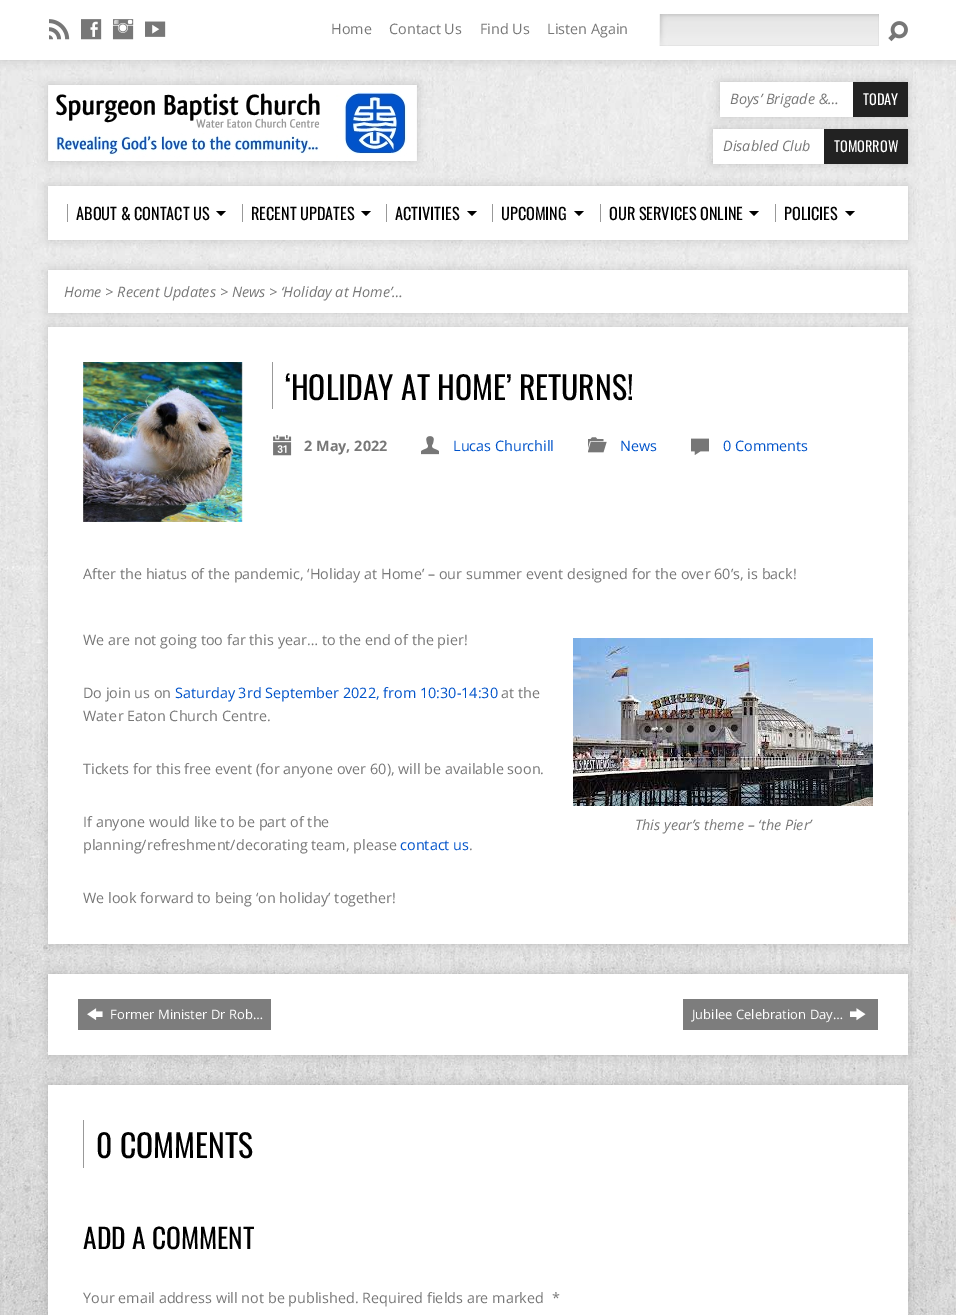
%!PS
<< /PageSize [956 1315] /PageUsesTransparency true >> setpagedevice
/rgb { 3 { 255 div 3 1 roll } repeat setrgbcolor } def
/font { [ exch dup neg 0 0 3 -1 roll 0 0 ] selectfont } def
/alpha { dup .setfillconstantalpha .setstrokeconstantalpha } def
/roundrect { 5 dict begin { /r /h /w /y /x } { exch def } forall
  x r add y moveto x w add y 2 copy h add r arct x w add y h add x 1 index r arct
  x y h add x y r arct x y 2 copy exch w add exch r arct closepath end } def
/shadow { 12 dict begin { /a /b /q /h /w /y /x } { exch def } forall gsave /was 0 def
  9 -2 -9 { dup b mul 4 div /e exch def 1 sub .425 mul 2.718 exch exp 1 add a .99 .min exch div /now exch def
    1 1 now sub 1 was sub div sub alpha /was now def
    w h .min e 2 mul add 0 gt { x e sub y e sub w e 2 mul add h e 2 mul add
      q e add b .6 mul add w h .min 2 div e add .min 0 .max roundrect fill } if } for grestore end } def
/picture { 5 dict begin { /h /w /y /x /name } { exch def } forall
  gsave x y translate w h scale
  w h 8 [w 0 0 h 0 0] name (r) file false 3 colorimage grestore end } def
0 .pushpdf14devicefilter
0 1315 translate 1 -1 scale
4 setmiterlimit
255 255 255 rgb
0 0 956 1315 rectfill
(img/1.rgb) 0 60 956 1255 picture
0 0 0 rgb
0 0 956 60 0 5 0.15 shadow
255 255 255 rgb
0 0 956 60 rectfill
(img/2.rgb) 49 19 21 21 picture
(img/3.rgb) 81 19 21 21 picture
(img/4.rgb) 112 19 22 21 picture
(img/5.rgb) 145 21 21 16 picture
(img/6.rgb) 660 14 219 32 picture
0.1 alpha
150 150 150 rgb
879 14 moveto 879 46 lineto 878 45 lineto 878 14 lineto closepath fill
879 46 moveto 659 46 lineto 660 45 lineto 878 45 lineto closepath fill
659 46 moveto 659 14 lineto 660 14 lineto 660 45 lineto closepath fill
1 alpha
(img/7.rgb) 888 21 20 21 picture
0 0 0 rgb
48 85 369 76 0 5 0.15 shadow
(img/8.rgb) 48 85 369 76 picture
720 82 188 35 0 5 0.15 shadow
255 255 255 rgb
720 82 133 35 rectfill
34 34 34 rgb
853 82 55 35 rectfill
0 0 0 rgb
713 129 195 35 0 5 0.15 shadow
255 255 255 rgb
713 129 111 35 rectfill
34 34 34 rgb
824 129 84 35 rectfill
0 0 0 rgb
48 186 860 54 0 5 0.15 shadow
255 255 255 rgb
48 186 860 54 rectfill
153 153 153 rgb
67 204 1 18 rectfill
0 0 0 rgb
216 211 moveto 226 211 lineto 221 216 lineto closepath fill
153 153 153 rgb
242 204 1 18 rectfill
0 0 0 rgb
361 211 moveto 371 211 lineto 366 216 lineto closepath fill
153 153 153 rgb
386 204 1 18 rectfill
0 0 0 rgb
467 211 moveto 477 211 lineto 472 216 lineto closepath fill
153 153 153 rgb
492 204 1 18 rectfill
0 0 0 rgb
574 211 moveto 584 211 lineto 579 216 lineto closepath fill
153 153 153 rgb
600 204 1 18 rectfill
0 0 0 rgb
749 211 moveto 759 211 lineto 754 216 lineto closepath fill
153 153 153 rgb
775 204 1 18 rectfill
0 0 0 rgb
845 211 moveto 855 211 lineto 850 216 lineto closepath fill
48 270 860 43 0 5 0.15 shadow
255 255 255 rgb
48 270 860 43 rectfill
0 0 0 rgb
48 327 860 617 0 5 0.15 shadow
255 255 255 rgb
48 327 860 617 rectfill
(img/9.rgb) 83 362 160 160 picture
153 153 153 rgb
272 362 1 47 rectfill
(img/10.rgb) 273 435 19 21 picture
(img/11.rgb) 421 436 18 19 picture
(img/12.rgb) 588 437 19 16 picture
(img/13.rgb) 691 438 18 17 picture
(img/14.rgb) 573 638 300 168 picture
0 0 0 rgb
48 974 860 81 0 5 0.15 shadow
255 255 255 rgb
48 974 860 81 rectfill
125 125 125 rgb
78 999 193 31 rectfill
(img/15.rgb) 87 1008 16 12 picture
683 999 195 31 rectfill
(img/16.rgb) 850 1008 16 13 picture
0 0 0 rgb
48 1085 860 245 0 5 0.15 shadow
255 255 255 rgb
48 1085 860 230 rectfill
153 153 153 rgb
83 1120 1 48 rectfill
/OpenSans-Regular 14.4 font
119 119 119 rgb
[
  [(Home) 331 34]
  [(Contact Us) 389 34]
  [(Find Us) 480 34]
  [(Listen Again) 547 34]
] { aload pop moveto show } forall
/OpenSans-Italic 14.4 font
730 104 moveto (Boys’ Brigade &…) show
/Oswald-Regular 14.4 font
255 255 255 rgb
863 105 moveto (TODAY) show
/OpenSans-Italic 14.4 font
119 119 119 rgb
723 151 moveto (Disabled Club) show
/Oswald-Regular 14.4 font
255 255 255 rgb
834 152 moveto (TOMORROW) show
/Oswald-Regular 16.25 font
0 0 0 rgb
[
  [(ABOUT & CONTACT US) 76 220]
  [(RECENT UPDATES) 251 220]
  [(ACTIVITIES) 395 220]
  [(UPCOMING) 501 220]
  [(OUR SERVICES ONLINE) 609 220]
  [(POLICIES) 784 220]
] { aload pop moveto show } forall
/OpenSans-Italic 14.4 font
119 119 119 rgb
64 297 moveto (Home > Recent Updates > News > ‘Holiday at Home’…) show
/Oswald-Regular 31.75 font
0 0 0 rgb
285 400 moveto (‘HOLIDAY AT HOME’ RETURNS!) show
/OpenSans-Bold 14.4 font
119 119 119 rgb
304 451 moveto (2 May, 2022) show
/OpenSans-Regular 14.4 font
0 83 202 rgb
[
  [(Lucas Churchill) 453 451]
  [(News) 620 451]
  [(0 Comments) 723 451]
] { aload pop moveto show } forall
119 119 119 rgb
[
  [(After the hiatus of the pandemic, ‘Holiday at Home’ – our summer event designed for the over 60’s, is back!) 83 579]
  [(We are not going too far this year… to the end of the pier!) 83 645]
  [(Do join us on) 83 698]
] { aload pop moveto show } forall
0 83 202 rgb
175 698 moveto (Saturday 3rd September 2022, from 10:30-14:30) show
119 119 119 rgb
[
  [(at the) 501 698]
  [(Water Eaton Church Centre.) 83 721]
  [(Tickets for this free event \(for anyone over 60\), will be available soon.) 83 774]
  [(If anyone would like to be part of the) 83 827]
  [(planning/refreshment/decorating team, please) 83 850]
] { aload pop moveto show } forall
0 83 202 rgb
400 850 moveto (contact us) show
119 119 119 rgb
469 850 moveto (.) show
/OpenSans-Italic 14.4 font
635 830 moveto (This year’s theme – ‘the Pier’) show
/OpenSans-Regular 14.4 font
83 903 moveto (We look forward to being ‘on holiday’ together!) show
/OpenSans-Regular 13 font
255 255 255 rgb
110 1019 moveto (Former Minister Dr Rob…) show
692 1019 moveto (Jubilee Celebration Day…) show
/Oswald-Regular 31.75 font
0 0 0 rgb
96 1158 moveto (0 COMMENTS) show
/Oswald-Regular 27.5 font
83 1249 moveto (ADD A COMMENT) show
/OpenSans-Regular 14.4 font
119 119 119 rgb
83 1303 moveto (Your email address will not be published. Required fields are marked) show
552 1303 moveto (*) show
.poppdf14devicefilter showpage
